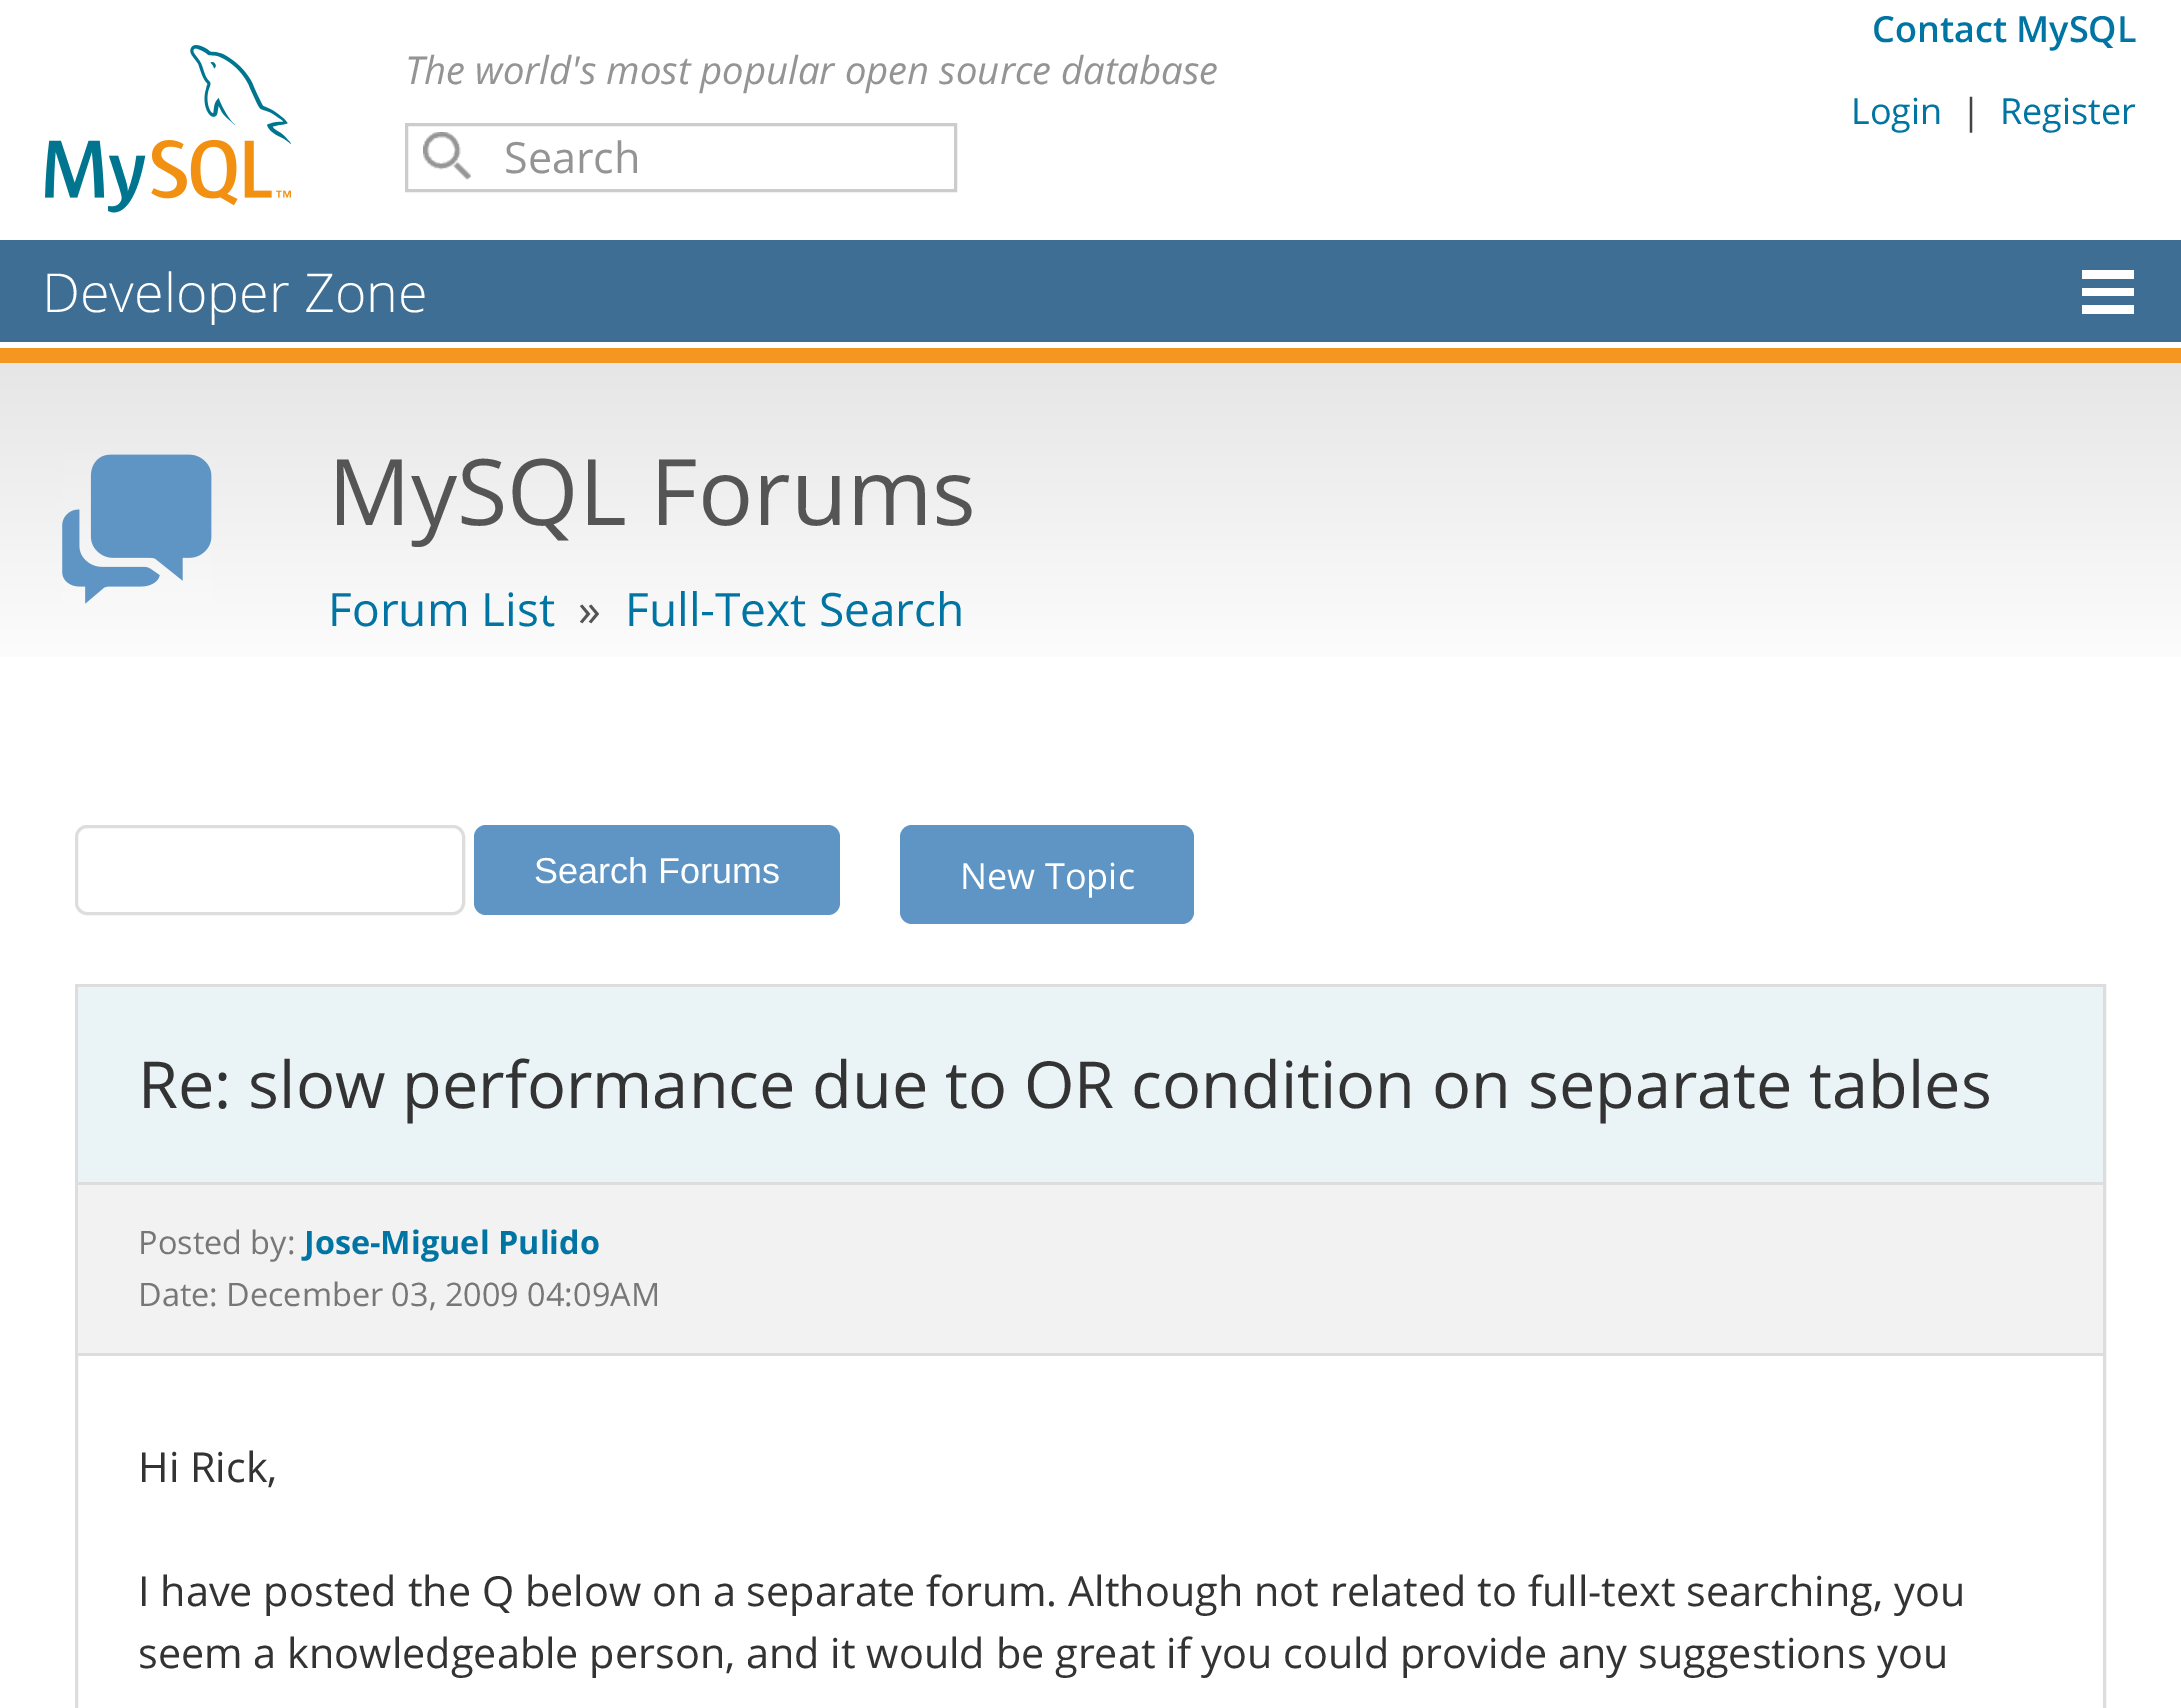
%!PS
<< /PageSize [2181 1708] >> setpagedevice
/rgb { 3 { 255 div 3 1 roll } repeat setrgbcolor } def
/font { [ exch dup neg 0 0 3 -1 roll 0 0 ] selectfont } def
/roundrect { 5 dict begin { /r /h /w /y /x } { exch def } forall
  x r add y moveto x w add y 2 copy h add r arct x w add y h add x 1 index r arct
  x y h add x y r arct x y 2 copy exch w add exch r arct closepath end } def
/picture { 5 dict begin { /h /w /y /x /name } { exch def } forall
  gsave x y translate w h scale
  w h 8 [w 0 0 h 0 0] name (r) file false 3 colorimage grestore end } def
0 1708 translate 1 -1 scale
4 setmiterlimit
255 255 255 rgb
0 0 2181 1708 rectfill
(img/1.rgb) 45 45 246 168 picture
(img/2.rgb) 423 132 48 48 picture
204 204 204 rgb
3 setlinewidth
406.5 124.5 549 66 rectstroke
62 110 147 rgb
0 240 2181 102 rectfill
255 255 255 rgb
2082 270 moveto 2082 279 lineto 2134 279 lineto 2134 270 lineto closepath 2082 296 moveto 2134 296 lineto 2134 288 lineto 2082 288 lineto closepath 2082 314 moveto 2134 314 lineto 2134 305 lineto 2082 305 lineto closepath fill
245 150 32 rgb
0 348 2181 15 rectfill
gsave 0 363 moveto 2181 363 lineto 2181 657 lineto 0 657 lineto closepath clip newpath
<< /ShadingType 2 /ColorSpace /DeviceRGB /Coords [1091 363 1091 690] /Extend [true true] /Function << /FunctionType 2 /Domain [0 1] /C0 [0.902 0.902 0.902] /C1 [1 1 1] /N 1 >> >> shfill grestore
(img/3.rgb) 62 454 150 150 picture
221 221 221 rgb
76.5 826.5 387 87 10.5 roundrect stroke
95 149 196 rgb
474 825 366 90 12 roundrect fill
900 825 294 99 12 roundrect fill
221 221 221 rgb
76.5 985.5 2028 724 rectstroke
[
  [78 987 2025 195 234 244 247]
  [78 1185 2025 168 242 242 242]
  [78 1182 2025 3 221 221 221]
  [78 1353 2025 3 221 221 221]
] { aload pop rgb rectfill } forall
/OpenSans-Italic 38.4 font
148 148 148 rgb
405 84 moveto (The world's most popular open source database) show
/OpenSans-Regular 43 font
504 173 moveto (Search) show
/OpenSans-SemiBold 36 font
0 116 163 rgb
1872 42 moveto (Contact MySQL) show
/OpenSans-Regular 36 font
1851 124 moveto (Login) show
68 68 68 rgb
1961 124 moveto (|) show
0 116 163 rgb
2000 124 moveto (Register) show
/OpenSans-Light 53.75 font
255 255 255 rgb
42 312 moveto (Developer Zone) show
/OpenSans-Regular 91.75 font
85 85 85 rgb
328 525 moveto (MySQL Forums) show
/OpenSans-Regular 46 font
0 116 163 rgb
328 626 moveto (Forum List) show
85 85 85 rgb
578 626 moveto (») show
0 116 163 rgb
625 626 moveto (Full-Text Search) show
/LiberationSans-Regular 36 font
255 255 255 rgb
534 883 moveto (Search Forums) show
/OpenSans-Regular 36 font
960 889 moveto (New Topic) show
/OpenSans-Regular 64.8 font
51 51 51 rgb
138 1108 moveto (Re: slow performance due to OR condition on separate tables) show
/OpenSans-Regular 32.4 font
119 119 119 rgb
138 1254 moveto (Posted by:) show
/OpenSans-Bold 32.4 font
0 116 163 rgb
304 1254 moveto (Jose-Miguel Pulido) show
/OpenSans-Regular 32.4 font
119 119 119 rgb
138 1306 moveto (Date: December 03, 2009 04:09AM) show
/OpenSans-Regular 41.4 font
51 51 51 rgb
[
  [(Hi Rick,) 138 1482]
  [(I have posted the Q below on a separate forum. Although not related to full-text searching, you) 138 1606]
  [(seem a knowledgeable person, and it would be great if you could provide any suggestions you) 138 1668]
] { aload pop moveto show } forall
showpage
